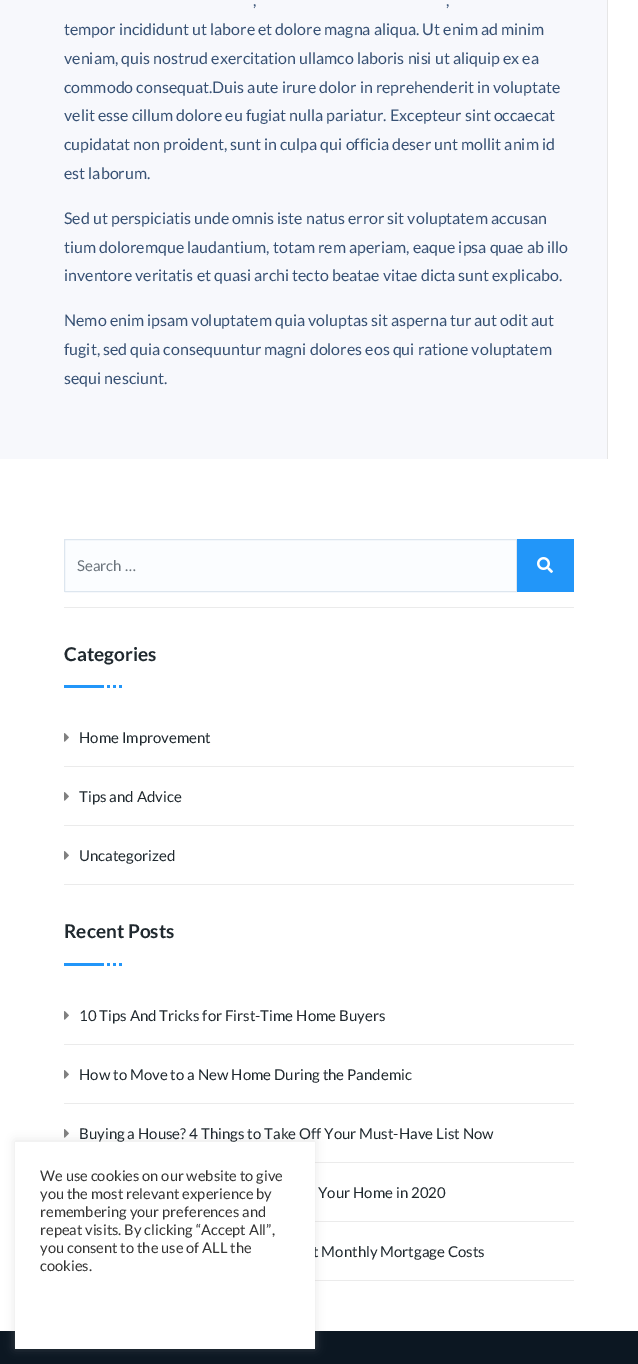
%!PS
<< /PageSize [638 1364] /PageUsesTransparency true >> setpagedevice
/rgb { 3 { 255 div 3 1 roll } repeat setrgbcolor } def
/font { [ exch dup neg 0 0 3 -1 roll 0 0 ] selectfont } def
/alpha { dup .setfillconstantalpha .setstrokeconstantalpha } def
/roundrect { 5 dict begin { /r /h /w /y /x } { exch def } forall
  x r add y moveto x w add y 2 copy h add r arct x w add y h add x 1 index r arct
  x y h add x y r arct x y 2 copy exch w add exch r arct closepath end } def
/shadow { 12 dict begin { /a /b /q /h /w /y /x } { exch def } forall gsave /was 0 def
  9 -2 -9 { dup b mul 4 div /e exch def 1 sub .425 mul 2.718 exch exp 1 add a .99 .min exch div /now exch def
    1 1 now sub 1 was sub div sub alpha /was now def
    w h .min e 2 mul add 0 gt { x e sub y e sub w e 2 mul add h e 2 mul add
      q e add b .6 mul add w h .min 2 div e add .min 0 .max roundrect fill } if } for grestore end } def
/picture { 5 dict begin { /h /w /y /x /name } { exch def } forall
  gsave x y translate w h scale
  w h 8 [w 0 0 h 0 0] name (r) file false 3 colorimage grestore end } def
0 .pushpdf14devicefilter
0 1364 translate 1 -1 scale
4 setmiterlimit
255 255 255 rgb
0 0 638 1364 rectfill
[
  [0 0 607 459 247 248 252]
  [607 0 1 459 230 230 230]
  [64 607 510 1 235 235 235]
] { aload pop rgb rectfill } forall
251 253 255 rgb
65 539.5 moveto 516.5 539.5 lineto 516.5 591.5 lineto 65 591.5 lineto 64.5 591.5 64.5 591.5 64.5 591 curveto 64.5 540 lineto 64.5 539.5 64.5 539.5 65 539.5 curveto closepath gsave fill grestore
221 230 239 rgb
stroke
34 150 249 rgb
517 539 57 53 rectfill
(img/1.rgb) 537 557 16 16 picture
[
  [64 884 510 1 235 235 235]
  [64 685 40 3 34 150 249]
  [107 685 3 3 34 150 249]
  [113 685 3 3 34 150 249]
  [119 685 3 3 34 150 249]
  [64 766 510 1 235 235 235]
] { aload pop rgb rectfill } forall
(img/2.rgb) 64 733 5 9 picture
64 825 510 1 rectfill
(img/2.rgb) 64 792 5 9 picture
(img/2.rgb) 64 851 5 9 picture
[
  [315 1280 259 1 235 235 235]
  [64 963 40 3 34 150 249]
  [107 963 3 3 34 150 249]
  [113 963 3 3 34 150 249]
  [119 963 3 3 34 150 249]
  [64 1044 510 1 235 235 235]
] { aload pop rgb rectfill } forall
(img/2.rgb) 64 1011 5 9 picture
64 1103 510 1 rectfill
(img/2.rgb) 64 1070 5 9 picture
315 1162 259 1 rectfill
(img/2.rgb) 64 1129 5 9 picture
315 1221 259 1 rectfill
12 23 34 rgb
0 1331 638 33 rectfill
172 171 171 rgb
15 1141 300 207 0 5 0.3 shadow
/Lato-Regular 16 font
55 81 116 rgb
[
  [(,) 253 6]
  [(,) 446 6]
  [(tempor incididunt ut labore et dolore magna aliqua. Ut enim ad minim) 64 35]
  [(veniam, quis nostrud exercitation ullamco laboris nisi ut aliquip ex ea) 64 64]
  [(commodo consequat.Duis aute irure dolor in reprehenderit in voluptate) 64 93]
  [(velit esse cillum dolore eu fugiat nulla pariatur. Excepteur sint occaecat) 64 121]
  [(cupidatat non proident, sunt in culpa qui officia deser unt mollit anim id) 64 150]
  [(est laborum.) 64 179]
  [(Sed ut perspiciatis unde omnis iste natus error sit voluptatem accusan) 64 224]
  [(tium doloremque laudantium, totam rem aperiam, eaque ipsa quae ab illo) 64 253]
  [(inventore veritatis et quasi archi tecto beatae vitae dicta sunt explicabo.) 64 281]
  [(Nemo enim ipsam voluptatem quia voluptas sit asperna tur aut odit aut) 64 326]
  [(fugit, sed quia consequuntur magni dolores eos qui ratione voluptatem) 64 355]
  [(sequi nesciunt.) 64 384]
] { aload pop moveto show } forall
/Lato-Regular 15 font
108 117 125 rgb
77 571 moveto (Search …) show
/Lato-Bold 19 font
32 41 47 rgb
64 661 moveto (Categories) show
/Lato-Regular 15 font
[
  [(Home Improvement) 79 743]
  [(Tips and Advice) 79 802]
  [(Uncategorized) 79 861]
] { aload pop moveto show } forall
/Lato-Bold 19 font
64 938 moveto (Recent Posts) show
/Lato-Regular 15 font
[
  [(10 Tips And Tricks for First-Time Home Buyers) 79 1021]
  [(How to Move to a New Home During the Pandemic) 79 1080]
  [(Buying a House? 4 Things to Take Off Your Must-Have List Now) 79 1139]
  [(Your Home in 2020) 318 1198]
  [(t Monthly Mortgage Costs) 313 1257]
] { aload pop moveto show } forall
255 255 255 rgb
15 1142 300 207 rectfill
/Lato-Regular 14.7 font
51 51 51 rgb
[
  [(We use cookies on our website to give) 40 1181]
  [(you the most relevant experience by) 40 1199]
  [(remembering your preferences and) 40 1217]
  [(repeat visits. By clicking “Accept All”,) 40 1235]
  [(you consent to the use of ALL the) 40 1253]
  [(cookies.) 40 1271]
] { aload pop moveto show } forall
.poppdf14devicefilter showpage
